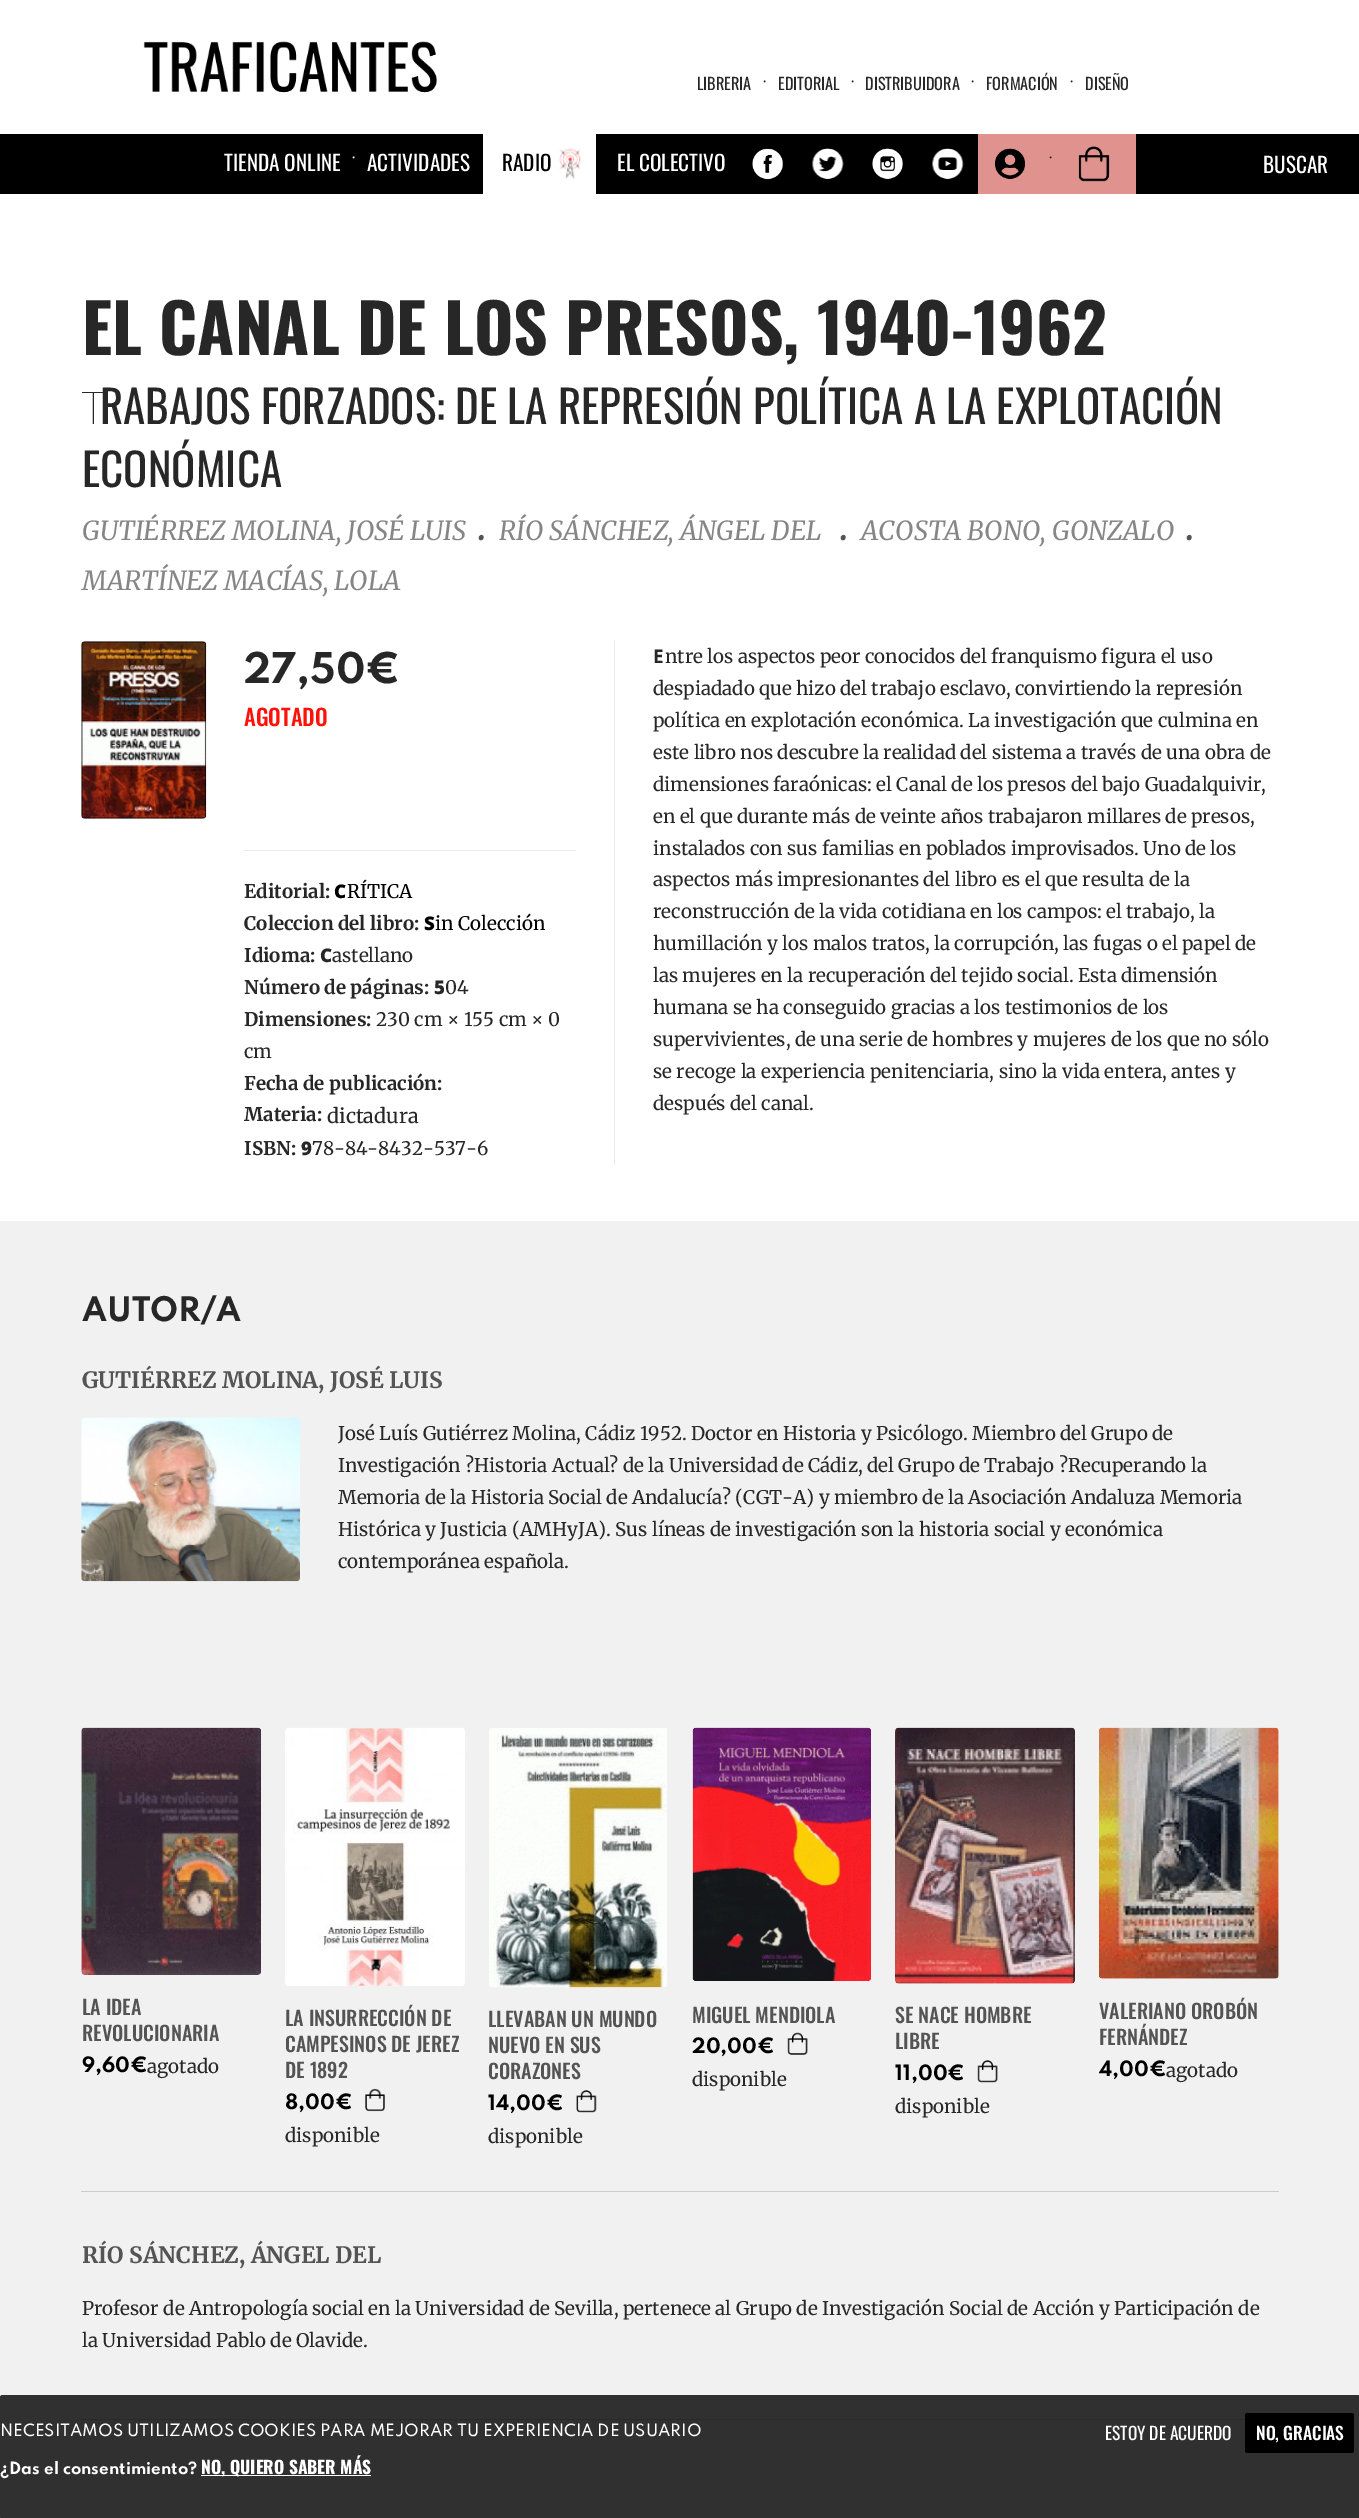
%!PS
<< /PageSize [1359 2518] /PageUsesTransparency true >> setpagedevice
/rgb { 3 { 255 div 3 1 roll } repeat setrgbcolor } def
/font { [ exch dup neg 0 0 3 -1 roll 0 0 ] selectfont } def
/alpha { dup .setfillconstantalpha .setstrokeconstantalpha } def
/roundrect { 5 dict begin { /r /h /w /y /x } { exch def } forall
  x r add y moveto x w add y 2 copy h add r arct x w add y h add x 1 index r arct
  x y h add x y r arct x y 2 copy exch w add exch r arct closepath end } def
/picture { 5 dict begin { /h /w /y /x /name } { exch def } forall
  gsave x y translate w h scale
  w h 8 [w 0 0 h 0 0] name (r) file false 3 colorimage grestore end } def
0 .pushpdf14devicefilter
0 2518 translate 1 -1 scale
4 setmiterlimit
255 255 255 rgb
0 0 1359 2518 rectfill
(img/1.rgb) 143 41 294 52 picture
0 0 0 rgb
0 134 1359 60 rectfill
255 255 255 rgb
483 134 113 60 rectfill
(img/2.rgb) 559 148 22 31 picture
(img/3.rgb) 752 148 31 32 picture
(img/4.rgb) 812 148 32 31 picture
(img/5.rgb) 872 148 31 31 picture
(img/6.rgb) 932 148 32 31 picture
224 146 143 rgb
978 134 158 60 rectfill
(img/7.rgb) 994 148 31 31 picture
(img/8.rgb) 1078 146 32 36 picture
(img/9.rgb) 81 641 126 178 picture
[
  [244 850 332 1 234 234 234]
  [614 641 1 524 234 234 234]
  [0 1221 1359 1297 241 241 241]
  [81 2191 1198 1 204 204 204]
] { aload pop rgb rectfill } forall
(img/10.rgb) 81 1417 219 165 picture
(img/11.rgb) 81 1727 180 248 picture
(img/12.rgb) 285 1727 180 259 picture
(img/13.rgb) 365 2088 20 24 picture
(img/14.rgb) 489 1728 178 260 picture
(img/15.rgb) 576 2090 21 23 picture
(img/16.rgb) 692 1727 179 254 picture
(img/17.rgb) 787 2032 21 23 picture
(img/18.rgb) 895 1727 180 257 picture
(img/19.rgb) 977 2060 21 23 picture
(img/20.rgb) 1099 1727 180 252 picture
81 2419 1164 1 rectfill
0.8 alpha
0 0 0 rgb
0 2395 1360 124 2.5 roundrect fill
1 alpha
255 255 255 rgb
201 2475 170 1 rectfill
0 0 0 rgb
1245 2413 109 40 2.5 roundrect fill
/Oswald-Regular 16.25 font
39 39 39 rgb
697 90 moveto (LIBRERIA) show
/Merriweather-Light 16.25 font
764 88 moveto (·) show
/Oswald-Regular 16.25 font
778 90 moveto (EDITORIAL) show
/Merriweather-Light 16.25 font
852 88 moveto (·) show
/Oswald-Regular 16.25 font
865 90 moveto (DISTRIBUIDORA) show
/Merriweather-Light 16.25 font
972 88 moveto (·) show
/Oswald-Regular 16.25 font
986 90 moveto (FORMACIÓN) show
/Merriweather-Light 16.25 font
1071 88 moveto (·) show
/Oswald-Regular 16.25 font
1085 90 moveto (DISEÑO) show
/Oswald-Regular 21.25 font
255 255 255 rgb
224 171 moveto (TIENDA ONLINE) show
/Merriweather-Light 16.25 font
353 164 moveto (·) show
/Oswald-Regular 21.25 font
367 171 moveto (ACTIVIDADES) show
0 0 0 rgb
502 171 moveto (RADIO) show
255 255 255 rgb
617 171 moveto (EL COLECTIVO) show
/Merriweather-Light 16.25 font
39 39 39 rgb
1050 164 moveto (·) show
/Oswald-Regular 21.25 font
255 255 255 rgb
1263 173 moveto (BUSCAR) show
/Oswald-Bold 67.5 font
39 39 39 rgb
82 355 moveto (EL CANAL DE LOS PRESOS, 1940-1962) show
/NotoSans-Thin 45 font
82 424 moveto (T) show
/Oswald-Regular 45 font
100 424 moveto (RABAJOS FORZADOS: DE LA REPRESIÓN POLÍTICA A LA EXPLOTACIÓN) show
82 487 moveto (ECONÓMICA) show
/Merriweather-Italic 26.25 font
134 134 134 rgb
82 540 moveto (GUTIÉRREZ MOLINA, JOSÉ LUIS) show
/Merriweather-BoldItalic 35 font
84 84 84 rgb
478 540 moveto (.) show
/Merriweather-Italic 26.25 font
134 134 134 rgb
499 540 moveto (RÍO SÁNCHEZ, ÁNGEL DEL) show
/Merriweather-BoldItalic 35 font
84 84 84 rgb
840 540 moveto (.) show
/Merriweather-Italic 26.25 font
134 134 134 rgb
861 540 moveto (ACOSTA BONO, GONZALO) show
/Merriweather-BoldItalic 35 font
84 84 84 rgb
1186 540 moveto (.) show
/Merriweather-Italic 26.25 font
134 134 134 rgb
82 590 moveto (MARTÍNEZ MACÍAS, LOLA) show
/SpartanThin-Bold 37.5 font
39 39 39 rgb
244 683 moveto (27,50€) show
/Oswald-Medium 22.5 font
255 17 8 rgb
244 726 moveto (AGOTADO) show
/Merriweather-Bold 18.75 font
39 39 39 rgb
244 898 moveto (Editorial:) show
/NotoSans-Black 18.75 font
0 0 0 rgb
334 898 moveto (C) show
/Merriweather-Regular 18.75 font
347 898 moveto (RÍTICA) show
/Merriweather-Bold 18.75 font
39 39 39 rgb
244 930 moveto (Coleccion del libro:) show
/NotoSans-Black 18.75 font
0 0 0 rgb
424 930 moveto (S) show
/Merriweather-Regular 18.75 font
435 930 moveto (in Colección) show
/Merriweather-Bold 18.75 font
39 39 39 rgb
244 962 moveto (Idioma:) show
/NotoSans-Black 18.75 font
320 962 moveto (C) show
/Merriweather-Regular 18.75 font
332 962 moveto (astellano) show
/Merriweather-Bold 18.75 font
244 994 moveto (Número de páginas:) show
/NotoSans-Black 18.75 font
434 994 moveto (5) show
/Merriweather-Regular 18.75 font
445 994 moveto (04) show
/Merriweather-Bold 18.75 font
244 1026 moveto (Dimensiones:) show
/Merriweather-Regular 18.75 font
376 1026 moveto (230 cm × 155 cm × 0) show
244 1058 moveto (cm) show
/Merriweather-Bold 18.75 font
244 1090 moveto (Fecha de publicación:) show
244 1121 moveto (Materia:) show
/Merriweather-Regular 20 font
327 1123 moveto (dictadura) show
/Merriweather-Bold 18.75 font
244 1155 moveto (ISBN:) show
/NotoSans-Black 18.75 font
301 1155 moveto (9) show
/Merriweather-Regular 18.75 font
[
  [(78-84-8432-537-6) 312 1155]
  [(ntre los aspectos peor conocidos del franquismo figura el uso) 665 663]
  [(despiadado que hizo del trabajo esclavo, convirtiendo la represión) 653 695]
  [(política en explotación económica. La investigación que culmina en) 653 727]
  [(este libro nos descubre la realidad del sistema a través de una obra de) 653 759]
  [(dimensiones faraónicas: el Canal de los presos del bajo Guadalquivir,) 653 791]
  [(en el que durante más de veinte años trabajaron millares de presos,) 653 823]
  [(instalados con sus familias en poblados improvisados. Uno de los) 653 855]
  [(aspectos más impresionantes del libro es el que resulta de la) 653 886]
  [(reconstrucción de la vida cotidiana en los campos: el trabajo, la) 653 918]
  [(humillación y los malos tratos, la corrupción, las fugas o el papel de) 653 950]
  [(las mujeres en la recuperación del tejido social. Esta dimensión) 653 982]
  [(humana se ha conseguido gracias a los testimonios de los) 653 1014]
  [(supervivientes, de una serie de hombres y mujeres de los que no sólo) 653 1046]
  [(se recoge la experiencia penitenciaria, sino la vida entera, antes y) 653 1078]
  [(después del canal.) 653 1110]
] { aload pop moveto show } forall
/NotoSans-Bold 18.75 font
653 663 moveto (E) show
/SpartanThin-Bold 30 font
82 1321 moveto (AUTOR/A) show
/Merriweather-Bold 22.5 font
84 84 84 rgb
82 1388 moveto (GUTIÉRREZ MOLINA, JOSÉ LUIS) show
/Merriweather-Regular 18.75 font
39 39 39 rgb
[
  [(José Luís Gutiérrez Molina, Cádiz 1952. Doctor en Historia y Psicólogo. Miembro del Grupo de) 338 1440]
  [(Investigación ?Historia Actual? de la Universidad de Cádiz, del Grupo de Trabajo ?Recuperando la) 338 1472]
  [(Memoria de la Historia Social de Andalucía? \(CGT-A\) y miembro de la Asociación Andaluza Memoria) 338 1504]
  [(Histórica y Justicia \(AMHyJA\). Sus líneas de investigación son la historia social y económica) 338 1536]
  [(contemporánea española.) 338 1568]
] { aload pop moveto show } forall
/Oswald-Medium 20 font
84 84 84 rgb
82 2015 moveto (LA IDEA) show
82 2041 moveto (REVOLUCIONARIA) show
/SpartanThin-Bold 18.75 font
0 0 0 rgb
82 2072 moveto (9,60€) show
/Merriweather-Regular 18.75 font
39 39 39 rgb
147 2073 moveto (agotado) show
/Oswald-Medium 20 font
84 84 84 rgb
[
  [(LA INSURRECCIÓN DE) 285 2026]
  [(CAMPESINOS DE JEREZ) 285 2052]
  [(DE 1892) 285 2078]
] { aload pop moveto show } forall
/SpartanThin-Bold 18.75 font
0 0 0 rgb
285 2109 moveto (8,00€) show
/Merriweather-Regular 18.75 font
39 39 39 rgb
285 2142 moveto (disponible) show
/Oswald-Medium 20 font
84 84 84 rgb
[
  [(LLEVABAN UN MUNDO) 488 2027]
  [(NUEVO EN SUS) 488 2053]
  [(CORAZONES) 488 2079]
] { aload pop moveto show } forall
/SpartanThin-Bold 18.75 font
0 0 0 rgb
488 2110 moveto (14,00€) show
/Merriweather-Regular 18.75 font
39 39 39 rgb
488 2143 moveto (disponible) show
/Oswald-Medium 20 font
84 84 84 rgb
692 2023 moveto (MIGUEL MENDIOLA) show
/SpartanThin-Bold 18.75 font
0 0 0 rgb
692 2053 moveto (20,00€) show
/Merriweather-Regular 18.75 font
39 39 39 rgb
692 2086 moveto (disponible) show
/Oswald-Medium 20 font
84 84 84 rgb
895 2023 moveto (SE NACE HOMBRE) show
895 2049 moveto (LIBRE) show
/SpartanThin-Bold 18.75 font
0 0 0 rgb
895 2080 moveto (11,00€) show
/Merriweather-Regular 18.75 font
39 39 39 rgb
895 2113 moveto (disponible) show
/Oswald-Medium 20 font
84 84 84 rgb
1099 2019 moveto (VALERIANO OROBÓN) show
1099 2045 moveto (FERNÁNDEZ) show
/SpartanThin-Bold 18.75 font
0 0 0 rgb
1099 2076 moveto (4,00€) show
/Merriweather-Regular 18.75 font
39 39 39 rgb
1166 2077 moveto (agotado) show
/Merriweather-Bold 22.5 font
84 84 84 rgb
82 2263 moveto (RÍO SÁNCHEZ, ÁNGEL DEL) show
/Merriweather-Regular 18.75 font
39 39 39 rgb
82 2315 moveto (Profesor de Antropología social en la Universidad de Sevilla, pertenece al Grupo de Investigación Social de Acción y Participación de) show
82 2347 moveto (la Universidad Pablo de Olavide.) show
/SpartanThin-Medium 15 font
255 255 255 rgb
0 2436 moveto (NECESITAMOS UTILIZAMOS COOKIES PARA MEJORAR TU EXPERIENCIA DE USUARIO) show
/SpartanThin-Bold 15 font
0 2474 moveto (¿Das el consentimiento?) show
/Oswald-Bold 17.5 font
201 2474 moveto (NO, QUIERO SABER MÁS) show
/Oswald-Regular 17.5 font
1105 2440 moveto (ESTOY DE ACUERDO) show
/Oswald-Medium 17.5 font
1256 2440 moveto (NO, GRACIAS) show
.poppdf14devicefilter showpage
